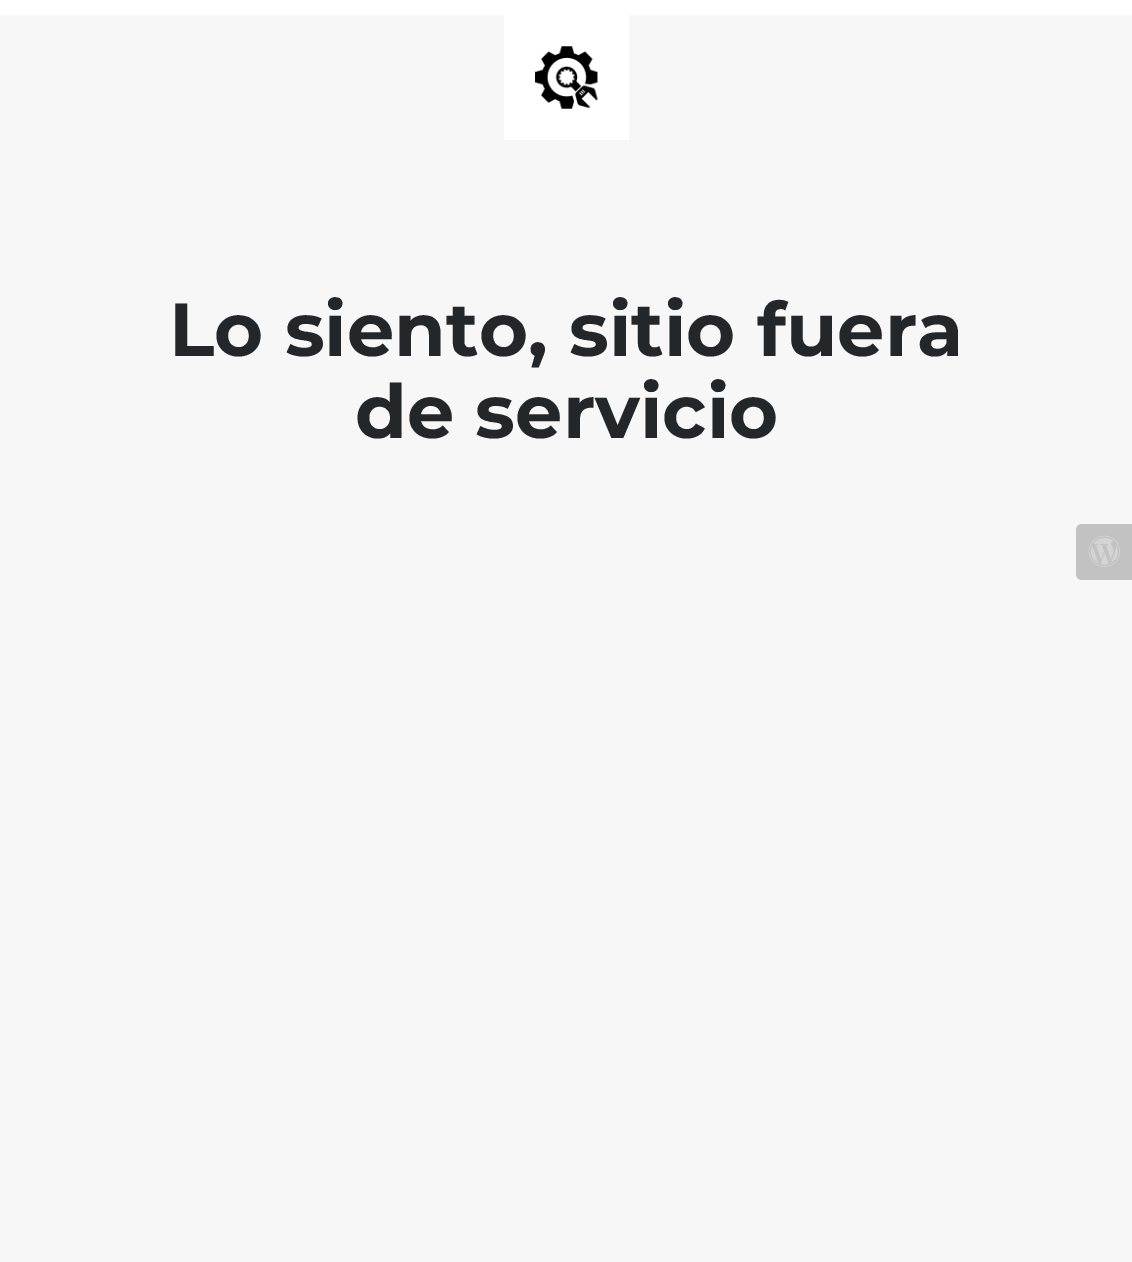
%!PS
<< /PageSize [1132 1262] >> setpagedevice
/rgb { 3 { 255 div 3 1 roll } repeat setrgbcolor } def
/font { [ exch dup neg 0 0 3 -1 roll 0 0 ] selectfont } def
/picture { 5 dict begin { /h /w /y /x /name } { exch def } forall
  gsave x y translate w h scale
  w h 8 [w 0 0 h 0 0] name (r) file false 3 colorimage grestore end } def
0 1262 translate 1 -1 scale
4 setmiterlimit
247 247 247 rgb
0 0 1132 1262 rectfill
255 255 255 rgb
0 0 1132 15 rectfill
504 15 125 125 rectfill
(img/1.rgb) 535 46 63 63 picture
194 194 194 rgb
1082 524 moveto 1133 524 lineto 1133 580 lineto 1082 580 lineto 1078.5 580 1076 577.5 1076 574 curveto 1076 530 lineto 1076 526.5 1078.5 524 1082 524 curveto closepath fill
(img/2.rgb) 1088 535 32 32 picture
/Montserrat-Thin 75 font
35 39 42 rgb
169 356 moveto (Lo siento, sitio fuera) show
355 438 moveto (de servicio) show
showpage
